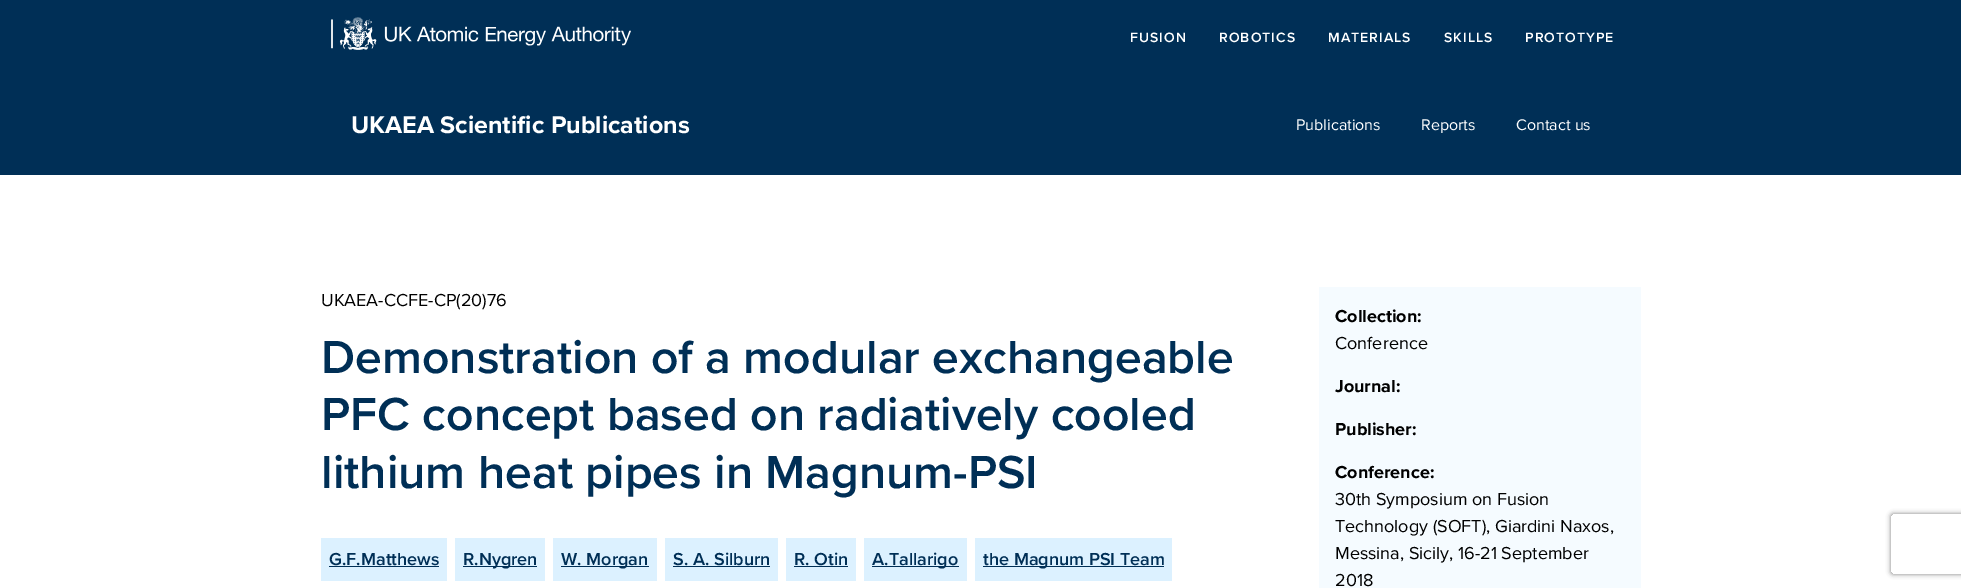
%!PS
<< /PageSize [1961 588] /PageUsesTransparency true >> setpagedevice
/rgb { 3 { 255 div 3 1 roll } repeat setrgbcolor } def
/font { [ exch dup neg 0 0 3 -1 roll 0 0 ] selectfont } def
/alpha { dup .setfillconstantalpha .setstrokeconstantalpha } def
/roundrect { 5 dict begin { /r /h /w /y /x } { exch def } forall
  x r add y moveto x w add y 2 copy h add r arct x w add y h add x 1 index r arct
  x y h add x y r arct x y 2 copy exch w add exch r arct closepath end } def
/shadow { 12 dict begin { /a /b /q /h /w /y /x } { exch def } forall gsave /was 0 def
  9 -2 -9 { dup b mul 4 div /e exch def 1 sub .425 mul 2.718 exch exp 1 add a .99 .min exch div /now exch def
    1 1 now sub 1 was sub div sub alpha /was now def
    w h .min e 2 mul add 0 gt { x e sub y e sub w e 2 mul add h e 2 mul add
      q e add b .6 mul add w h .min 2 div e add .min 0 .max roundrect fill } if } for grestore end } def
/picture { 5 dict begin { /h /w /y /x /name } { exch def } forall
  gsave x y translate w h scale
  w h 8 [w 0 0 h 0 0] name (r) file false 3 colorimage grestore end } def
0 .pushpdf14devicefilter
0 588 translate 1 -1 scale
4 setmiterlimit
255 255 255 rgb
0 0 1961 588 rectfill
0 47 86 rgb
0 0 1961 175 rectfill
(img/1.rgb) 331 17 300 33 picture
[
  [321 538 126 43 220 241 255]
  [329 566 110 1 0 47 86]
  [455 538 90 43 220 241 255]
  [463 566 74 1 0 47 86]
  [553 538 104 43 220 241 255]
  [561 566 88 1 0 47 86]
  [665 538 113 43 220 241 255]
  [673 566 97 1 0 47 86]
  [786 538 70 43 220 241 255]
  [794 566 54 1 0 47 86]
  [864 538 103 43 220 241 255]
  [872 566 87 1 0 47 86]
  [975 538 197 43 220 241 255]
  [983 566 181 1 0 47 86]
  [1319 287 322 301 245 251 255]
] { aload pop rgb rectfill } forall
gsave
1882 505 moveto 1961 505 lineto 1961 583 lineto 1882 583 lineto closepath 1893 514 moveto 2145 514 lineto 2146 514 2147 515 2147 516 curveto 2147 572 lineto 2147 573 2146 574 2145 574 curveto 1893 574 lineto 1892 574 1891 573 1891 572 curveto 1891 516 lineto 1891 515 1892 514 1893 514 curveto closepath eoclip newpath
128 128 128 rgb
1891 514 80 60 2 2.5 1 shadow
grestore
/ProximaNova-SemiBold 14 font
255 255 255 rgb
1130 42 moveto 1 0 (FUSION) ashow
1219 42 moveto 1 0 (ROBOTICS) ashow
1328 42 moveto 1 0 (MATERIALS) ashow
1444 42 moveto 1 0 (SKILLS) ashow
1525 42 moveto 1 0 (PROTOTYPE) ashow
/ProximaNova-Bold 25 font
351 133 moveto (UKAEA Scientific Publications) show
/ProximaNova-Regular 16 font
[
  [(Publications) 1296 130]
  [(Reports) 1421 130]
  [(Contact us) 1516 130]
] { aload pop moveto show } forall
/ProximaNova-Regular 18 font
0 0 0 rgb
321 306 moveto (UKAEA-CCFE-CP\(20\)76) show
/ProximaNova-SemiBold 48 font
0 47 86 rgb
[
  [(Demonstration of a modular exchangeable) 321 373]
  [(PFC concept based on radiatively cooled) 321 430]
  [(lithium heat pipes in Magnum-PSI) 321 488]
] { aload pop moveto show } forall
/ProximaNova-SemiBold 18 font
[
  [(G.F.Matthews) 329 565]
  [(R.Nygren) 463 565]
  [(W. Morgan) 561 565]
  [(S. A. Silburn) 673 565]
  [(R. Otin) 794 565]
  [(A.Tallarigo) 872 565]
  [(the Magnum PSI Team) 983 565]
] { aload pop moveto show } forall
/ProximaNova-Bold 18 font
0 0 0 rgb
1335 322 moveto (Collection:) show
/ProximaNova-Regular 18 font
1335 349 moveto (Conference) show
/ProximaNova-Bold 18 font
[
  [(Journal:) 1335 392]
  [(Publisher:) 1335 435]
  [(Conference:) 1335 478]
] { aload pop moveto show } forall
/ProximaNova-Regular 18 font
[
  [(30th Symposium on Fusion) 1335 505]
  [(Technology \(SOFT\), Giardini Naxos,) 1335 532]
  [(Messina, Sicily, 16-21 September) 1335 559]
  [(2018) 1335 586]
] { aload pop moveto show } forall
.poppdf14devicefilter showpage
